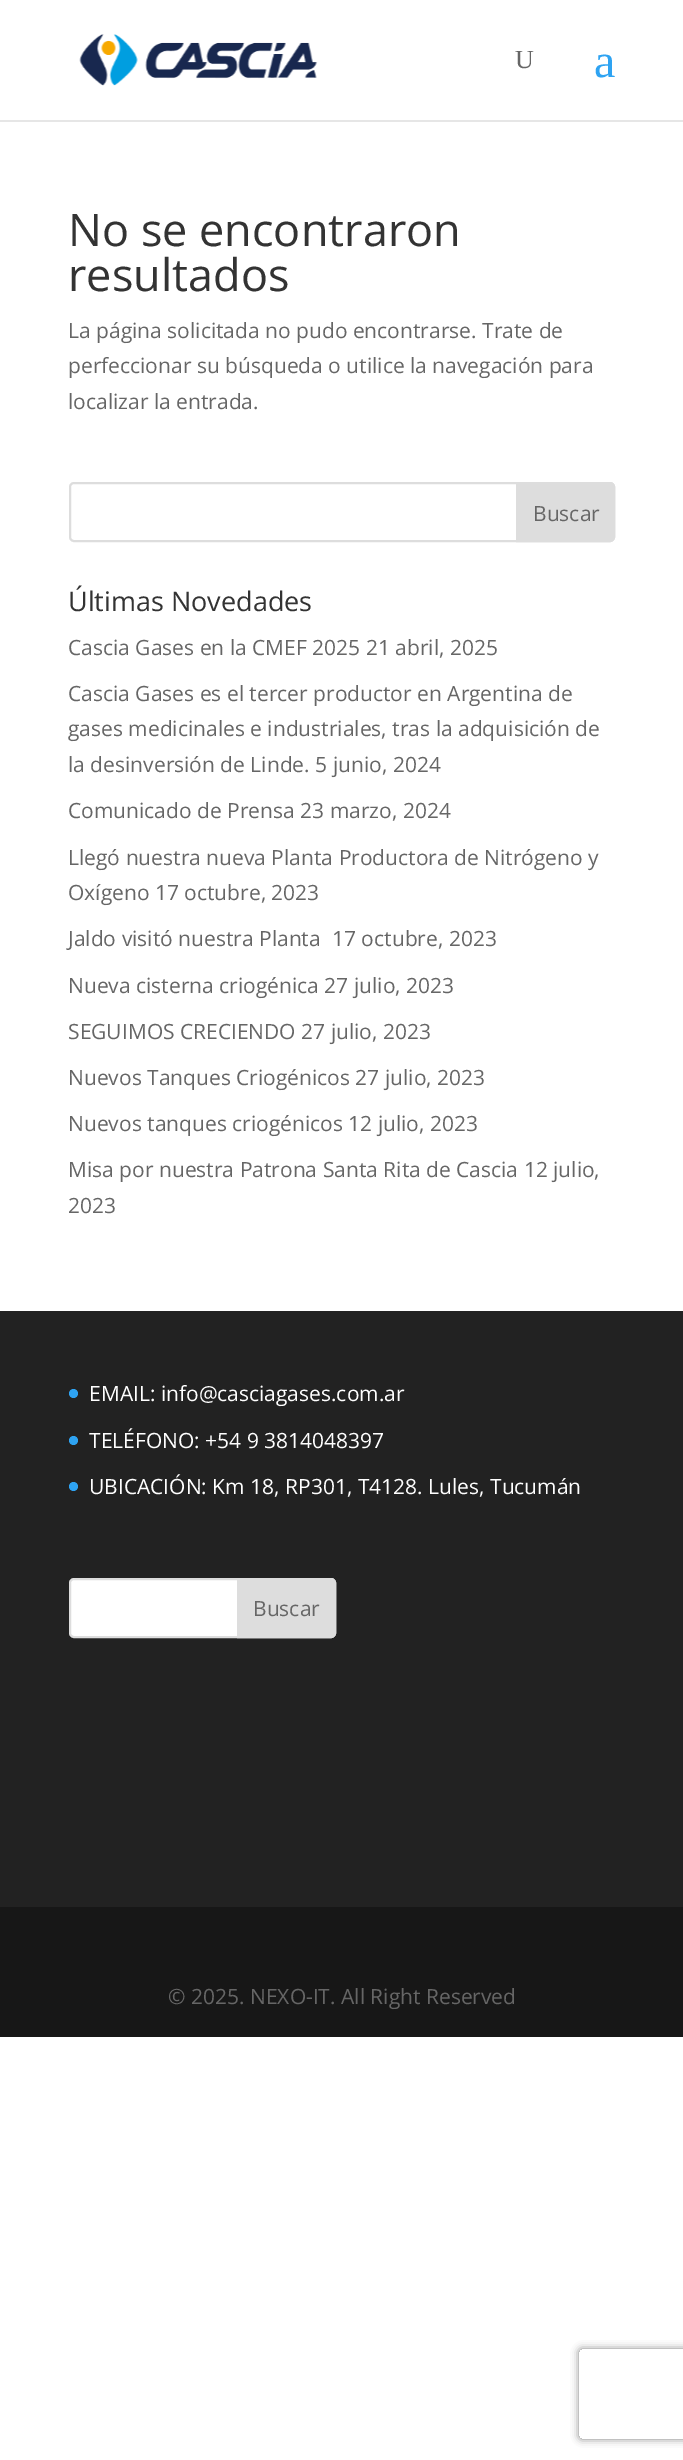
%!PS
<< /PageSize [683 2460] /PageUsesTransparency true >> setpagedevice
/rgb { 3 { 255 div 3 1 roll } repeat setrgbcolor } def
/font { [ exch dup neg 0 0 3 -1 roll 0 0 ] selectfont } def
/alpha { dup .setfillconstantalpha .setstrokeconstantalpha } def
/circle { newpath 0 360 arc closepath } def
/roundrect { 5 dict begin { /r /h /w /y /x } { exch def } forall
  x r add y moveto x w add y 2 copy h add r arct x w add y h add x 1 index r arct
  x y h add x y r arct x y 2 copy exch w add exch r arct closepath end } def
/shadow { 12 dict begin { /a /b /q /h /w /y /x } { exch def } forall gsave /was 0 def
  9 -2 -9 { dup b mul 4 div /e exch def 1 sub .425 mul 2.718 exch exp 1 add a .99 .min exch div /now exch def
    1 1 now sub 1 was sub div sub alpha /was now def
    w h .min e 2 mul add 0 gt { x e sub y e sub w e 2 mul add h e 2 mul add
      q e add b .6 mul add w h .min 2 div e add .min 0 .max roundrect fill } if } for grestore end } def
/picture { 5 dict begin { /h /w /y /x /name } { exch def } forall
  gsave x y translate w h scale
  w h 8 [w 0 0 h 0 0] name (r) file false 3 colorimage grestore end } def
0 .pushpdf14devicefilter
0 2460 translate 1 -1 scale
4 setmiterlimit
255 255 255 rgb
0 0 683 2460 rectfill
230 230 230 rgb
0 120 683 2 rectfill
(img/1.rgb) 79 34 239 52 picture
221 221 221 rgb
2 setlinewidth
70 483 544 58 4 roundrect stroke
517 483 moveto 610 483 lineto 612 483 614 485 614 487 curveto 614 537 lineto 614 539 612 541 610 541 curveto 517 541 lineto closepath gsave fill grestore
stroke
34 34 34 rgb
0 1311 683 596 rectfill
46 163 242 rgb
73.5 1393.5 4.5 circle fill
73.5 1440.5 4.5 circle fill
73.5 1486.5 4.5 circle fill
255 255 255 rgb
70 1579 265 58 4 roundrect gsave fill grestore
221 221 221 rgb
stroke
238 1579 moveto 331 1579 lineto 333 1579 335 1581 335 1583 curveto 335 1633 lineto 335 1635 333 1637 331 1637 curveto 238 1637 lineto closepath gsave fill grestore
stroke
23 23 23 rgb
0 1907 683 130 rectfill
gsave
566 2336 moveto 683 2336 lineto 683 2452 lineto 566 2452 lineto closepath 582 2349 moveto 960 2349 lineto 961.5 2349 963 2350.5 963 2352 curveto 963 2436 lineto 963 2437.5 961.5 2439 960 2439 curveto 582 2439 lineto 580.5 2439 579 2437.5 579 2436 curveto 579 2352 lineto 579 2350.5 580.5 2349 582 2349 curveto closepath eoclip newpath
128 128 128 rgb
579 2349 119 90 3 4 1 shadow
grestore
/LiberationSerif-Regular 26 font
102 102 102 rgb
515 68 moveto (U) show
/LiberationSerif-Regular 48 font
46 163 242 rgb
594 77 moveto (a) show
/OpenSans-Regular 45 font
51 51 51 rgb
68 246 moveto (No se encontraron) show
68 291 moveto (resultados) show
/OpenSans-Regular 21 font
102 102 102 rgb
[
  [(La página solicitada no pudo encontrarse. Trate de) 68 338]
  [(perfeccionar su búsqueda o utilice la navegación para) 68 373]
  [(localizar la entrada.) 68 409]
  [(Buscar) 533 521]
] { aload pop moveto show } forall
/OpenSans-Regular 27 font
51 51 51 rgb
68 611 moveto (Últimas Novedades) show
/OpenSans-Regular 21 font
102 102 102 rgb
[
  [(Cascia Gases en la CMEF 2025 21 abril, 2025) 68 655]
  [(Cascia Gases es el tercer productor en Argentina de) 68 701]
  [(gases medicinales e industriales, tras la adquisición de) 68 736]
  [(la desinversión de Linde. 5 junio, 2024) 68 772]
  [(Comunicado de Prensa 23 marzo, 2024) 68 818]
  [(Llegó nuestra nueva Planta Productora de Nitrógeno y) 68 865]
  [(Oxígeno 17 octubre, 2023) 68 900]
  [(Jaldo visitó nuestra Planta) 68 946]
  [(17 octubre, 2023) 332 946]
  [(Nueva cisterna criogénica 27 julio, 2023) 68 993]
  [(SEGUIMOS CRECIENDO 27 julio, 2023) 68 1039]
  [(Nuevos Tanques Criogénicos 27 julio, 2023) 68 1085]
  [(Nuevos tanques criogénicos 12 julio, 2023) 68 1131]
  [(Misa por nuestra Patrona Santa Rita de Cascia 12 julio,) 68 1177]
  [(2023) 68 1213]
] { aload pop moveto show } forall
255 255 255 rgb
[
  [(EMAIL: info@casciagases.com.ar) 89 1401]
  [(TELÉFONO: +54 9 3814048397) 89 1448]
  [(UBICACIÓN: Km 18, RP301, T4128. Lules, Tucumán) 89 1494]
] { aload pop moveto show } forall
102 102 102 rgb
253 1616 moveto (Buscar) show
168 2004 moveto (© 2025. NEXO-IT. All Right Reserved) show
.poppdf14devicefilter showpage
